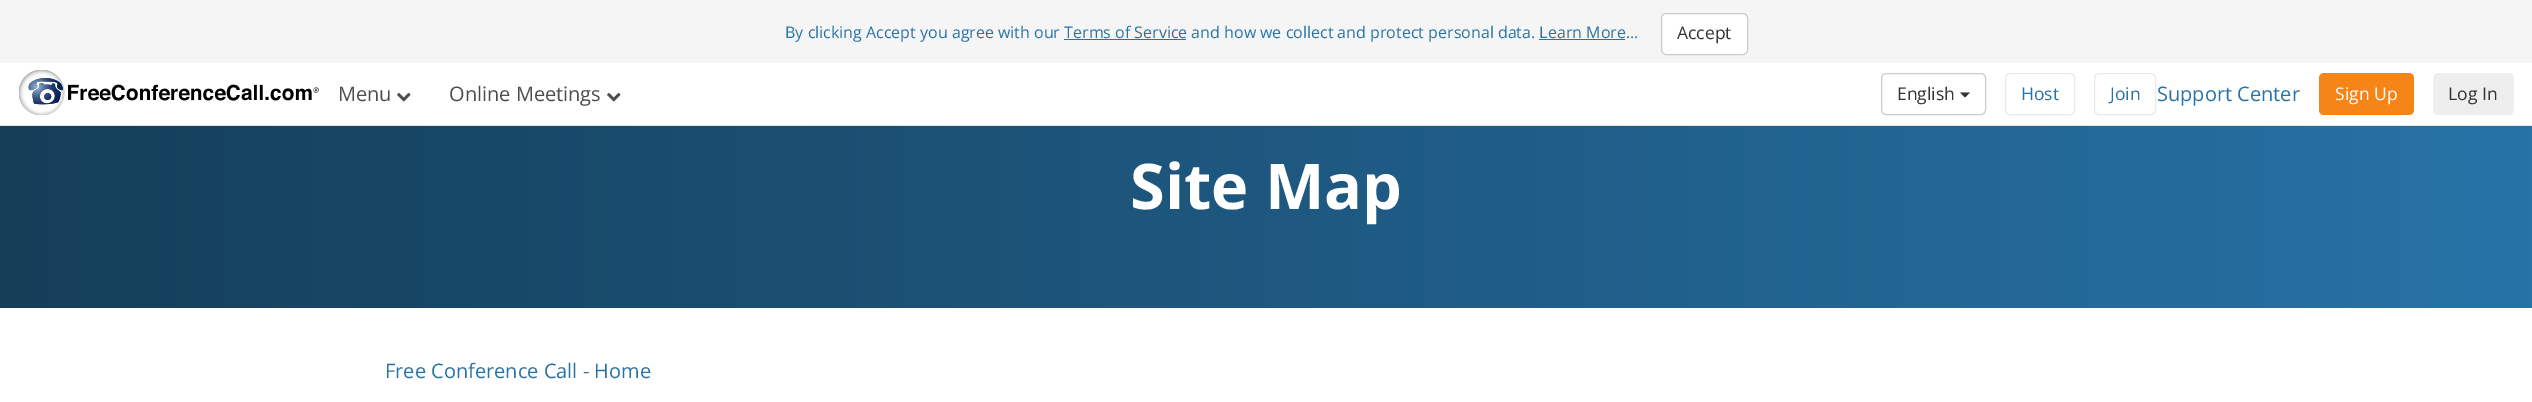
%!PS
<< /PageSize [2532 402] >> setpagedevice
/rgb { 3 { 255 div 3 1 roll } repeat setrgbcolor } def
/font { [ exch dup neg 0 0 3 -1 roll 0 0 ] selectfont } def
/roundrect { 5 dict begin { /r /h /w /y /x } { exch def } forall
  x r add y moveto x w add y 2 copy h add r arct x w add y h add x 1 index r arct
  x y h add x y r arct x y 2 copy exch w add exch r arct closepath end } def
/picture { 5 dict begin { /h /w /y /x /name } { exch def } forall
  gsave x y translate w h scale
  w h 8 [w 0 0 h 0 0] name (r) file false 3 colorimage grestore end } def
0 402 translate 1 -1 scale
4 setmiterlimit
255 255 255 rgb
0 0 2532 402 rectfill
229 229 229 rgb
0 125 2532 1 rectfill
245 245 245 rgb
0 0 2532 63 rectfill
255 255 255 rgb
1661.5 13.5 86 41 4.5 roundrect gsave fill grestore
204 204 204 rgb
stroke
39 115 167 rgb
1064 39 122 1 rectfill
1539 39 86 1 rectfill
(img/1.rgb) 19 70 300 45 picture
(img/2.rgb) 397 92 14 10 picture
(img/2.rgb) 607 92 14 10 picture
204 204 204 rgb
1881.5 73.5 104 41 4.5 roundrect stroke
51 51 51 rgb
1960 92.5 moveto 1970 92.5 lineto 1965 97.5 lineto closepath fill
231 233 237 rgb
2005.5 73.5 69 41 4.5 roundrect stroke
2094.5 73.5 61 41 4.5 roundrect stroke
245 133 23 rgb
2319 73 95 42 5 roundrect fill
238 238 238 rgb
2433 73 81 42 5 roundrect fill
gsave 0 126 moveto 2532 126 lineto 2532 308 lineto 0 308 lineto closepath clip newpath
<< /ShadingType 2 /ColorSpace /DeviceRGB /Coords [0 186 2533 186] /Extend [true true] /Function << /FunctionType 2 /Domain [0 1] /C0 [0.082 0.243 0.349] /C1 [0.153 0.451 0.655] /N 1 >> >> shfill grestore
/OpenSans-Regular 16 font
39 115 167 rgb
785 38 moveto (By clicking Accept you agree with our Terms of Service and how we collect and protect personal data. Learn More...) show
/OpenSans-Regular 17.5 font
51 51 51 rgb
1677 39 moveto (Accept) show
/OpenSans-Regular 20 font
77 77 77 rgb
338 101 moveto (Menu) show
449 101 moveto (Online Meetings) show
/OpenSans-Regular 17.5 font
51 51 51 rgb
1897 100 moveto (English) show
39 115 167 rgb
2021 100 moveto (Host) show
2110 100 moveto (Join) show
/OpenSans-Regular 20 font
2157 101 moveto (Support Center) show
/OpenSans-Regular 17.5 font
255 255 255 rgb
2335 100 moveto (Sign Up) show
51 51 51 rgb
2448 100 moveto (Log In) show
/OpenSans-Bold 63 font
255 255 255 rgb
1130 209 moveto (Site Map) show
/OpenSans-Regular 20 font
39 115 167 rgb
385 378 moveto (Free Conference Call - Home) show
showpage
